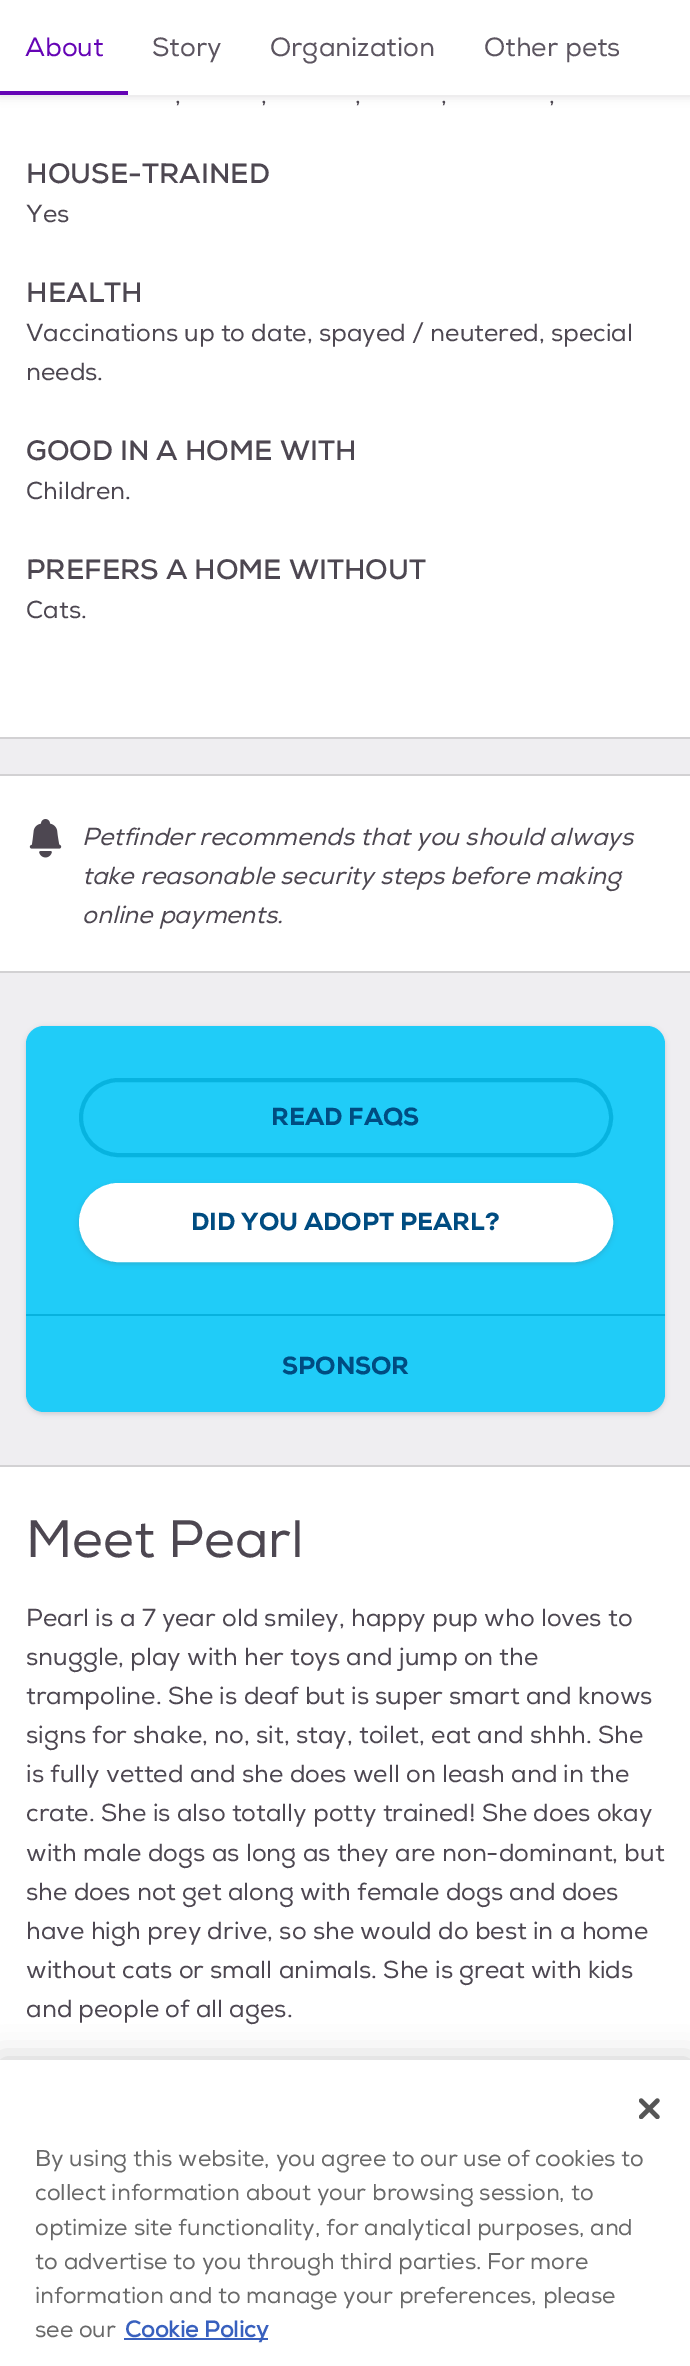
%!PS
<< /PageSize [690 2366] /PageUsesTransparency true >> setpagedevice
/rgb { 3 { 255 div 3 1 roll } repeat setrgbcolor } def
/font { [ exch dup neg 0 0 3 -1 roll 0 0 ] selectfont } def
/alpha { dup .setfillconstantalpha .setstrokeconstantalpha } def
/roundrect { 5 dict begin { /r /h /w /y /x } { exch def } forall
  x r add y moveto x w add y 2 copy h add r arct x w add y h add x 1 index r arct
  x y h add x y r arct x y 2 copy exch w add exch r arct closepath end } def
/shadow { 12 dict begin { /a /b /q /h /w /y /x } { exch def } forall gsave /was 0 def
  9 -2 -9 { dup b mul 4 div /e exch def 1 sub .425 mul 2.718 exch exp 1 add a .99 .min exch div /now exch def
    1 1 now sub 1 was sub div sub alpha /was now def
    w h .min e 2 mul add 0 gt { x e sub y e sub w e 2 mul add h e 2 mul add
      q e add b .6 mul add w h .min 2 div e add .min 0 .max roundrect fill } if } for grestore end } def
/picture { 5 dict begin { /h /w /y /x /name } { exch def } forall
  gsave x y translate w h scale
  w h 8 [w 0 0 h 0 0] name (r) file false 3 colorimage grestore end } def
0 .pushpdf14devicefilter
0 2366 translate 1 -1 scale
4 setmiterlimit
239 238 241 rgb
0 0 690 2366 rectfill
255 255 255 rgb
0 95 690 642 rectfill
77 71 81 rgb
0 2 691 94 0 5 0.2 shadow
[
  [0 0 690 95 255 255 255]
  [0 91 128 4 101 4 181]
  [0 737 690 2 210 209 211]
  [0 776 690 195 255 255 255]
  [0 774 690 2 210 209 211]
  [0 971 690 2 210 209 211]
] { aload pop rgb rectfill } forall
(img/1.rgb) 29 819 33 39 picture
77 71 81 rgb
26 1027 639 387 18 2.5 0.2 shadow
32 204 248 rgb
26 1026 639 386 18 roundrect fill
7 179 223 rgb
4 setlinewidth
81 1080 530 75 37.5 roundrect stroke
77 71 81 rgb
79 1185 534 79 39.5 2.5 0.2 shadow
255 255 255 rgb
81 1185 530 75 37.5 roundrect gsave fill grestore
stroke
[
  [26 1314 639 2 7 178 222]
  [0 1467 690 593 255 255 255]
  [0 1465 690 2 210 209 211]
] { aload pop rgb rectfill } forall
0 0 0 rgb
0 2060 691 306 0 16 0.2 shadow
255 255 255 rgb
0 2060 690 306 rectfill
(img/2.rgb) 639 2098 21 21 picture
56 96 190 rgb
124 2338 144 2 rectfill
/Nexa-Regular 26.25 font
101 4 181 rgb
25 56 moveto (About) show
92 85 96 rgb
[
  [(Story) 152 56]
  [(Organization) 270 56]
  [(Other pets) 484 56]
] { aload pop moveto show } forall
/Nexa-Regular 24.5 font
77 71 81 rgb
[
  [(,) 175 103]
  [(,) 261 103]
  [(,) 355 103]
  [(,) 441 103]
  [(,) 549 103]
] { aload pop moveto show } forall
/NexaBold-Bold 28 font
26 183 moveto (HOUSE-TRAINED) show
/Nexa-Regular 24.5 font
26 222 moveto (Yes) show
/NexaBold-Bold 28 font
26 302 moveto (HEALTH) show
/Nexa-Regular 24.5 font
26 341 moveto (Vaccinations up to date, spayed / neutered, special) show
26 380 moveto (needs.) show
/NexaBold-Bold 28 font
26 460 moveto (GOOD IN A HOME WITH) show
/Nexa-Regular 24.5 font
26 499 moveto (Children.) show
/NexaBold-Bold 28 font
26 579 moveto (PREFERS A HOME WITHOUT) show
/Nexa-Regular 24.5 font
26 618 moveto (Cats.) show
/Nexa-Italic 24.5 font
[
  [(Petfinder recommends that you should always) 82 845]
  [(take reasonable security steps before making) 82 884]
  [(online payments.) 82 923]
] { aload pop moveto show } forall
/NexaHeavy-Black 24.5 font
0 76 129 rgb
[
  [(READ FAQS) 271 1125]
  [(DID YOU ADOPT PEARL?) 191 1230]
  [(SPONSOR) 282 1374]
] { aload pop moveto show } forall
/Nexa-Regular 52.5 font
77 71 81 rgb
26 1557 moveto (Meet Pearl) show
/Nexa-Regular 24.5 font
[
  [(Pearl is a 7 year old smiley, happy pup who loves to) 26 1626]
  [(snuggle, play with her toys and jump on the) 26 1665]
  [(trampoline. She is deaf but is super smart and knows) 26 1704]
  [(signs for shake, no, sit, stay, toilet, eat and shhh. She) 26 1743]
  [(is fully vetted and she does well on leash and in the) 26 1782]
  [(crate. She is also totally potty trained! She does okay) 26 1821]
  [(with male dogs as long as they are non-dominant, but) 26 1861]
  [(she does not get along with female dogs and does) 26 1900]
  [(have high prey drive, so she would do best in a home) 26 1939]
  [(without cats or small animals. She is great with kids) 26 1978]
  [(and people of all ages.) 26 2017]
] { aload pop moveto show } forall
/Nexa-Regular 22.75 font
105 105 105 rgb
[
  [(By using this website, you agree to our use of cookies to) 35 2166]
  [(collect information about your browsing session, to) 35 2200]
  [(optimize site functionality, for analytical purposes, and) 35 2235]
  [(to advertise to you through third parties.) 35 2269]
  [(For more) 487 2269]
  [(information and to manage your preferences, please) 35 2303]
  [(see our) 35 2337]
] { aload pop moveto show } forall
/Nexa-Bold 22.75 font
56 96 190 rgb
125 2337 moveto (Cookie Policy) show
.poppdf14devicefilter showpage
